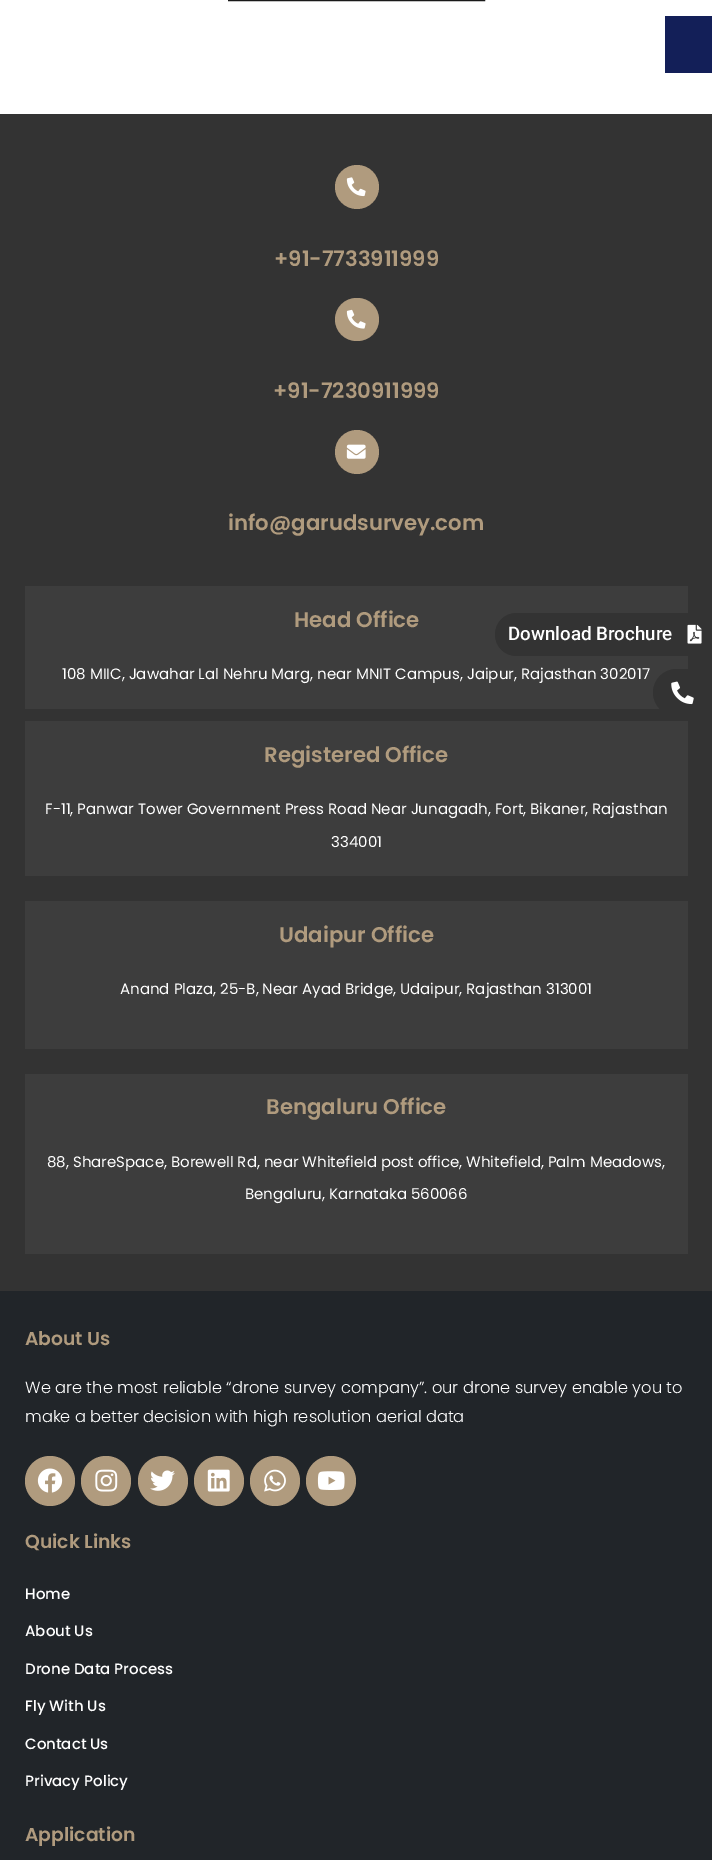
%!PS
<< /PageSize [712 1860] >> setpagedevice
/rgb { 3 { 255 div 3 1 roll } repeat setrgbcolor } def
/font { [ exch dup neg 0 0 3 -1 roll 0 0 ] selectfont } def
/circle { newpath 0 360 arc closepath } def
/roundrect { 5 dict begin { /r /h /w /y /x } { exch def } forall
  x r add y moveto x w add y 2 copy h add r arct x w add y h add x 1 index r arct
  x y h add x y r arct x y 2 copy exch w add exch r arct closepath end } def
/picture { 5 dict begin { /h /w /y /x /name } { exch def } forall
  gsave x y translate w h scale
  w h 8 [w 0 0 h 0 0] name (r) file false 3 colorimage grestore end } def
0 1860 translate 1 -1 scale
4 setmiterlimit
255 255 255 rgb
0 0 712 1860 rectfill
25 25 25 rgb
228.5 -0.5 256 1 rectstroke
19 31 88 rgb
665 16 47 57 rectfill
51 51 51 rgb
0 114 712 1177 rectfill
176 155 126 rgb
357 187 22 circle fill
(img/1.rgb) 346 177 20 20 picture
335 298 44 43 21.5 roundrect fill
(img/2.rgb) 346 309 20 20 picture
357 452 22 circle fill
(img/3.rgb) 346 444 20 15 picture
[
  [25 586 663 123 61 61 61]
  [25 721 663 155 61 61 61]
  [25 901 663 148 61 61 61]
  [25 1074 663 180 61 61 61]
] { aload pop rgb rectfill } forall
51 51 51 rgb
516.5 613 moveto 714 613 lineto 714 656 lineto 516.5 656 lineto 504.5 656 495 646.5 495 634.5 curveto 495 622.5 504.5 613 516.5 613 curveto closepath fill
(img/4.rgb) 687 624 15 20 picture
676.5 669 moveto 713 669 lineto 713 716 lineto 676.5 716 lineto 663.5 716 653 705.5 653 692.5 curveto 653 679.5 663.5 669 676.5 669 curveto closepath fill
(img/5.rgb) 671 681 23 24 picture
33 37 41 rgb
0 1291 712 569 rectfill
176 155 126 rgb
50 1481 25 circle fill
(img/6.rgb) 37 1468 26 25 picture
106 1481 25 circle fill
(img/7.rgb) 95 1469 23 23 picture
163 1481 25 circle fill
(img/8.rgb) 150 1470 25 21 picture
219 1481 25 circle fill
(img/9.rgb) 207 1469 23 23 picture
275 1481 25 circle fill
(img/10.rgb) 264 1469 22 23 picture
331 1481 25 circle fill
(img/11.rgb) 317 1471 28 19 picture
/Poppins-SemiBold 21.25 font
[
  [(+91-7733911999) 274 266]
  [(+91-7230911999) 273 398]
  [(info@garudsurvey.com) 228 530]
  [(Head Office) 294 627]
] { aload pop moveto show } forall
/Poppins-Regular 15 font
255 255 255 rgb
62 679 moveto (108 MIIC, Jawahar Lal Nehru Marg, near MNIT Campus, Jaipur, Rajasthan 302017) show
/Poppins-SemiBold 21.25 font
176 155 126 rgb
264 762 moveto (Registered Office) show
/Poppins-Regular 15 font
255 255 255 rgb
45 814 moveto (F-11, Panwar Tower Government Press Road Near Junagadh, Fort, Bikaner, Rajasthan) show
331 847 moveto (334001) show
/Poppins-SemiBold 21.25 font
176 155 126 rgb
279 942 moveto (Udaipur Office) show
/Poppins-Regular 15 font
255 255 255 rgb
120 994 moveto (Anand Plaza, 25-B, Near Ayad Bridge, Udaipur, Rajasthan 313001) show
/Poppins-SemiBold 21.25 font
176 155 126 rgb
266 1114 moveto (Bengaluru Office) show
/Poppins-Regular 15 font
255 255 255 rgb
47 1167 moveto (88, ShareSpace, Borewell Rd, near Whitefield post office, Whitefield, Palm Meadows,) show
245 1199 moveto (Bengaluru, Karnataka 560066) show
/Roboto-Medium 18.75 font
508 640 moveto (Download Brochure) show
/Poppins-SemiBold 18.75 font
176 155 126 rgb
25 1345 moveto (About Us) show
/Poppins-Light 16.25 font
255 255 255 rgb
25 1393 moveto (We are the most reliable “drone survey company”. our drone survey enable you to) show
25 1422 moveto (make a better decision with high resolution aerial data) show
/Poppins-SemiBold 18.75 font
176 155 126 rgb
25 1548 moveto (Quick Links) show
/Poppins-Medium 15 font
255 255 255 rgb
[
  [(Home) 25 1599]
  [(About Us) 25 1636]
  [(Drone Data Process) 25 1674]
  [(Fly With Us) 25 1711]
  [(Contact Us) 25 1749]
  [(Privacy Policy) 25 1786]
] { aload pop moveto show } forall
/Poppins-SemiBold 18.75 font
176 155 126 rgb
25 1841 moveto (Application) show
showpage
